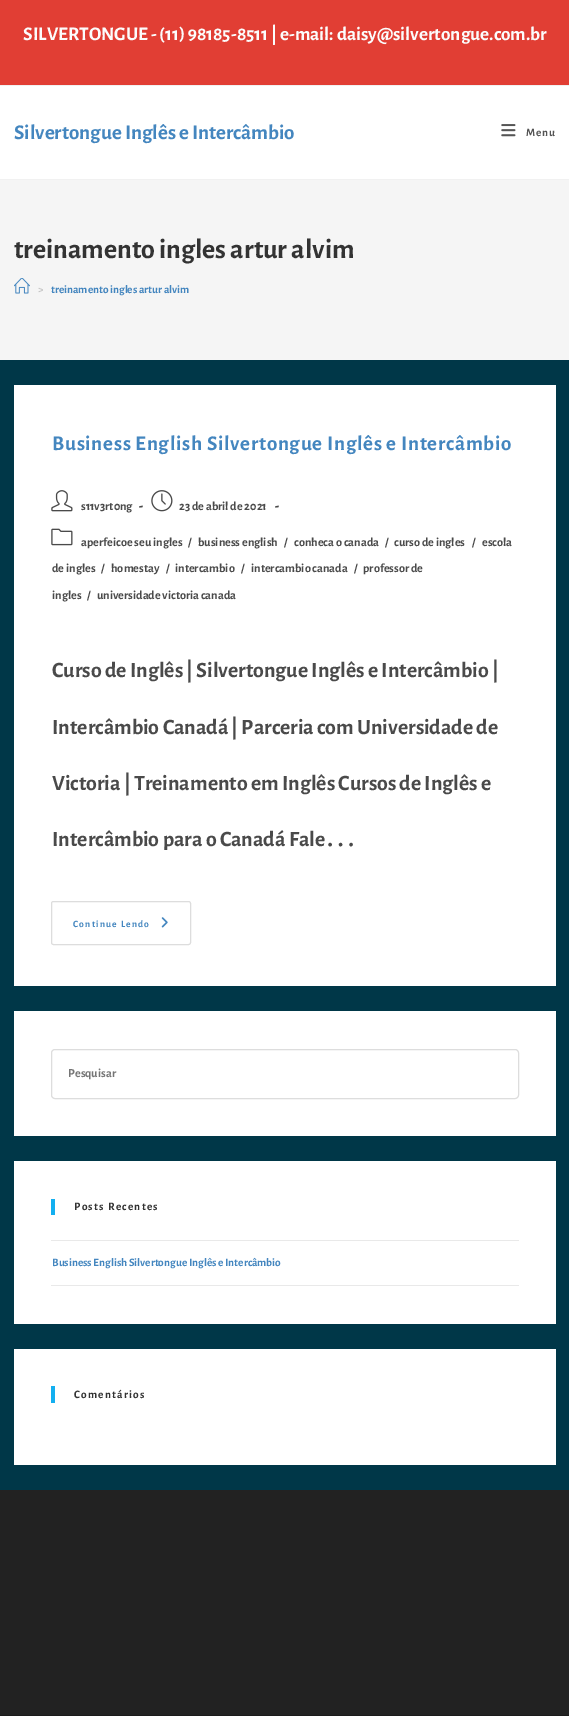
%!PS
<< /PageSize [569 1716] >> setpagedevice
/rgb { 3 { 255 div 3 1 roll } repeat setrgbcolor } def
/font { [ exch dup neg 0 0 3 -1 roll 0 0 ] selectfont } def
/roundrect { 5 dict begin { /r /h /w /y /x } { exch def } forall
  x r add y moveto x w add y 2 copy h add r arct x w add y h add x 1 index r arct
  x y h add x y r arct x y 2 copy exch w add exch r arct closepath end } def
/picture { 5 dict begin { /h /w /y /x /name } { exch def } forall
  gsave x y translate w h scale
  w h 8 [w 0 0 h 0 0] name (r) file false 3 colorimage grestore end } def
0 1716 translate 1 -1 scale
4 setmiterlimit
0 55 72 rgb
0 0 569 1716 rectfill
[
  [0 0 569 85 225 62 52]
  [0 85 569 1 241 241 241]
  [0 86 569 93 255 255 255]
  [0 179 569 1 241 241 241]
] { aload pop rgb rectfill } forall
(img/1.rgb) 501 124 15 13 picture
245 245 245 rgb
0 180 569 180 rectfill
(img/2.rgb) 14 278 16 16 picture
255 255 255 rgb
14 385 542 601 rectfill
(img/3.rgb) 51 490 22 22 picture
(img/4.rgb) 151 490 22 22 picture
(img/5.rgb) 51 528 22 18 picture
221 221 221 rgb
51.5 901.5 139 43 2 roundrect stroke
(img/6.rgb) 161 917 7 11 picture
255 255 255 rgb
14 1011 542 125 rectfill
221 221 221 rgb
51.5 1049.5 467 49 3.5 roundrect stroke
[
  [14 1161 542 163 255 255 255]
  [51 1199 4 16 19 175 240]
  [51 1240 468 1 233 233 233]
  [51 1285 468 1 233 233 233]
  [14 1349 542 116 255 255 255]
  [51 1386 4 17 19 175 240]
  [0 1490 569 225 34 34 34]
  [0 1715 569 1 27 27 27]
] { aload pop rgb rectfill } forall
/Gurajada-Regular 27.5 font
252 252 252 rgb
23 40 moveto (SILVERTONGUE - \(11\) 98185-8511 | e-mail: daisy@silvertongue.com.br) show
/Gurajada-Regular 30 font
68 134 191 rgb
14 139 moveto (Silvertongue Inglês e Intercâmbio) show
/Gurajada-Regular 16.25 font
85 85 85 rgb
526 136 moveto 0.75 0 (Menu) ashow
/Gurajada-Regular 40 font
51 51 51 rgb
14 258 moveto (treinamento ingles artur alvim) show
/Gurajada-Regular 16.25 font
198 198 198 rgb
38 293 moveto (>) show
68 134 191 rgb
51 293 moveto (treinamento ingles artur alvim) show
/Gurajada-Regular 30 font
52 450 moveto 0.75 0 (Business English Silvertongue Inglês e Intercâmbio) ashow
/Gurajada-Regular 17.5 font
74 74 74 rgb
81 510 moveto (s11v3rt0ng) show
/Gurajada-Bold 17.5 font
139 510 moveto (-) show
/Gurajada-Regular 17.5 font
179 510 moveto (23 de abril de 2021) show
/Gurajada-Bold 17.5 font
275 510 moveto (-) show
/Gurajada-Regular 17.5 font
[
  [(aperfeicoe seu ingles) 81 546]
  [(/) 188 546]
  [(business english) 198 546]
  [(/) 284 546]
  [(conheca o canada) 294 546]
  [(/) 385 546]
  [(curso de ingles) 394 546]
  [(/) 472 546]
  [(escola) 482 546]
  [(de ingles) 52 572]
  [(/) 101 572]
  [(homestay) 111 572]
  [(/) 166 572]
  [(intercambio) 175 572]
  [(/) 241 572]
  [(intercambio canada) 251 572]
  [(/) 354 572]
  [(professor de) 363 572]
  [(ingles) 52 599]
  [(/) 87 599]
  [(universidade victoria canada) 97 599]
] { aload pop moveto show } forall
/Gurajada-Regular 31.25 font
[
  [(Curso de Inglês | Silvertongue Inglês e Intercâmbio |) 52 677]
  [(Intercâmbio Canadá | Parceria com Universidade de) 52 734]
  [(Victoria | Treinamento em Inglês Cursos de Inglês e) 52 790]
  [(Intercâmbio para o Canadá Fale) 52 846]
] { aload pop moveto show } forall
/LiberationSerif-Regular 31.25 font
325 846 moveto (…) show
/Gurajada-Regular 13.75 font
68 134 191 rgb
73 927 moveto 1.25 0 (Continue Lendo) ashow
/Gurajada-Regular 17.5 font
117 117 117 rgb
68 1077 moveto (Pesquisar) show
/Gurajada-Regular 16.25 font
51 51 51 rgb
74 1210 moveto 1.25 0 (Posts Recentes) ashow
68 134 191 rgb
52 1266 moveto (Business English Silvertongue Inglês e Intercâmbio) show
51 51 51 rgb
74 1398 moveto 1.25 0 (Comentários) ashow
showpage
